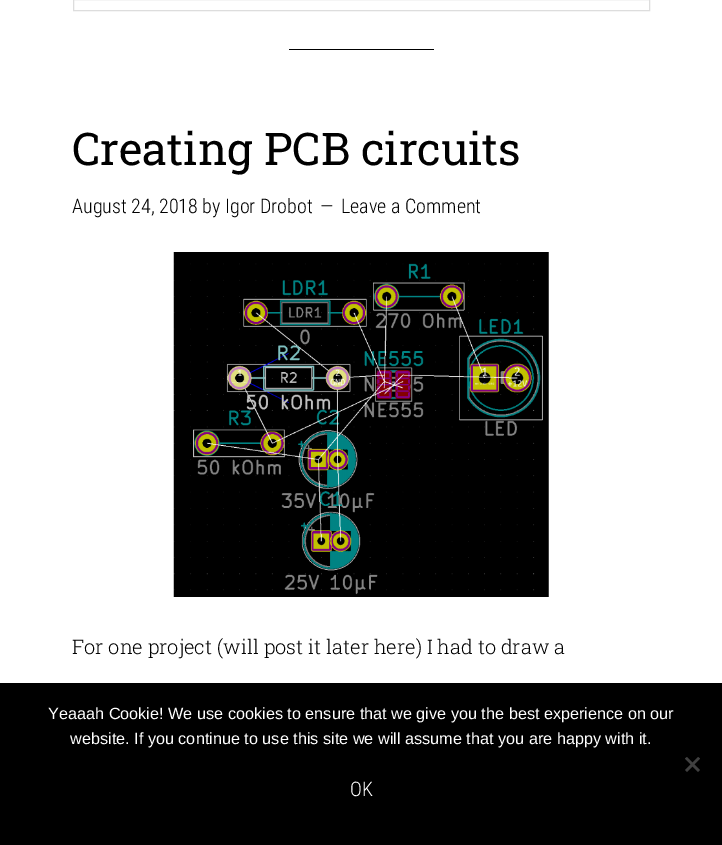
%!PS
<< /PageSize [722 845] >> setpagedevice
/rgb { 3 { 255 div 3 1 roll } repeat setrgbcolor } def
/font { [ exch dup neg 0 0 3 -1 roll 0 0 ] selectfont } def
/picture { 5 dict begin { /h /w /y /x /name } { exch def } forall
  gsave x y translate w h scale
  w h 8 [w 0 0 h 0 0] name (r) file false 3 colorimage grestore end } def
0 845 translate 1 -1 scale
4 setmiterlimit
255 255 255 rgb
0 0 722 845 rectfill
221 221 221 rgb
73.5 -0.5 576 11 rectstroke
0 0 0 rgb
289 49 145 1 rectfill
(img/1.rgb) 173 252 376 345 picture
0 683 722 162 rectfill
64 64 64 rgb
698 757 moveto 700 758.5 lineto 687 772 lineto 685 770 lineto closepath fill
685 758.5 moveto 687 757 lineto 700 770 lineto 698 772 lineto closepath fill
/RobotoSlab-Regular 45 font
0 0 0 rgb
72 165 moveto (Creating PCB circuits) show
/RobotoCondensed-Light 20 font
[
  [(August 24, 2018 by Igor Drobot) 72 213]
  [(—) 320 213]
  [(Leave a Comment) 341 213]
] { aload pop moveto show } forall
/RobotoSlab-Light 20 font
72 654 moveto (For one project \(will post it later here\) I had to draw a) show
/LiberationSans-Regular 16.25 font
255 255 255 rgb
48 719 moveto (Yeaaah Cookie! We use cookies to ensure that we give you the best experience on our) show
70 744 moveto (website. If you continue to use this site we will assume that you are happy with it.) show
/RobotoCondensed-Light 20 font
350 796 moveto (OK) show
showpage
